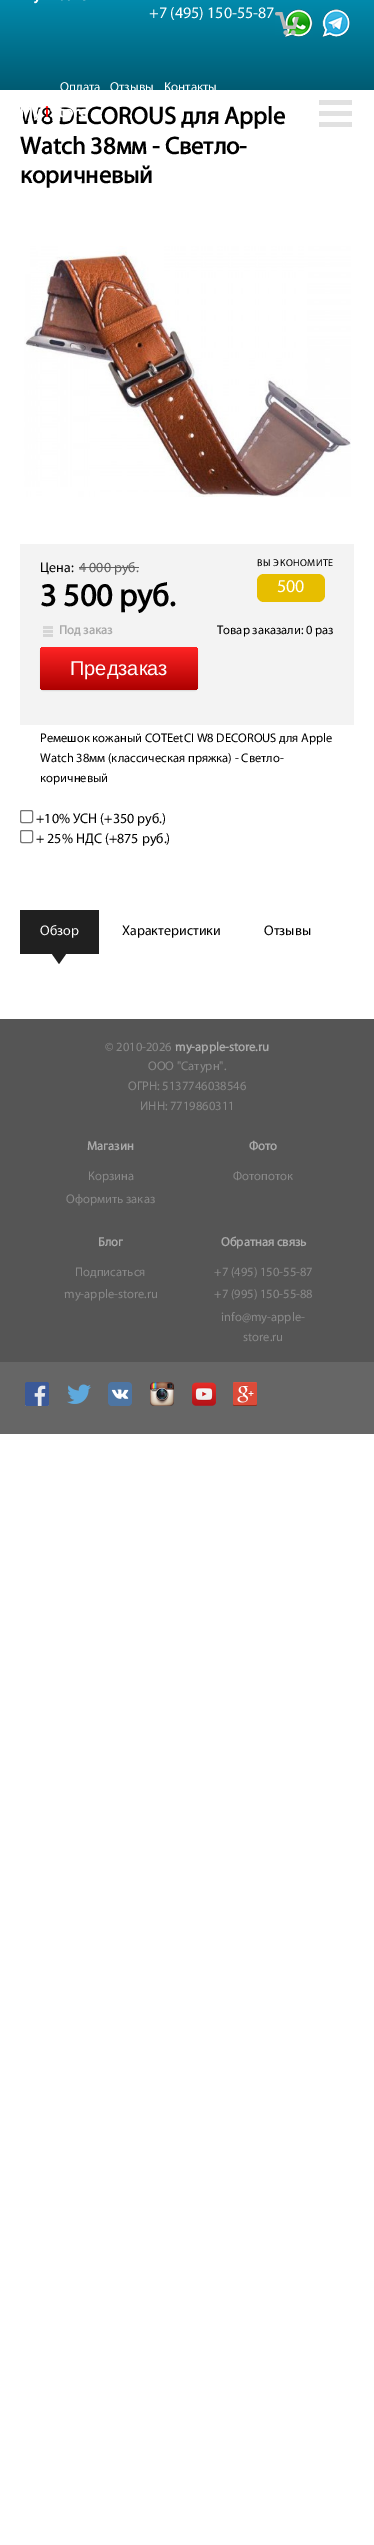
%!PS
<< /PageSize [374 2545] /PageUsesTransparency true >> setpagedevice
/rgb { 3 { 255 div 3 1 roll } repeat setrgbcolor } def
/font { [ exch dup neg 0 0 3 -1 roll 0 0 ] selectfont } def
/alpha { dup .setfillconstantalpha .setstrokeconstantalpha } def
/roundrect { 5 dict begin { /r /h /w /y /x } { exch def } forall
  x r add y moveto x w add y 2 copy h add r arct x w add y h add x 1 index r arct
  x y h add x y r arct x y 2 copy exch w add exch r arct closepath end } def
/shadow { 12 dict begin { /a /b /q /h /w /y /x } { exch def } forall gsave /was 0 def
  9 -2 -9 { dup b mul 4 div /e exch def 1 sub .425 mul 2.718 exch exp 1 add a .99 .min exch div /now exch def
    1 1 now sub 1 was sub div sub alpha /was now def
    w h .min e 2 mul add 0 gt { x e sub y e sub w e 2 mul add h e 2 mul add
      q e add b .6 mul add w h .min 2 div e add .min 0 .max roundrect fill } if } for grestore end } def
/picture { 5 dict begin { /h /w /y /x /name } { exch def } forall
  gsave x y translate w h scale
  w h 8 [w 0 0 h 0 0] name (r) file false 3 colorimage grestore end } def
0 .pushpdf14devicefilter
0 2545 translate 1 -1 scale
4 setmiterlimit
255 255 255 rgb
0 0 374 2545 rectfill
gsave 0 0 moveto 374 0 lineto 374 90 lineto 0 90 lineto closepath clip newpath
<< /ShadingType 2 /ColorSpace /DeviceRGB /Coords [187 0 187 90] /Extend [true true] /Function << /FunctionType 2 /Domain [0 1] /C0 [0.008 0.541 0.675] /C1 [0 0.357 0.447] /N 1 >> >> shfill grestore
(img/1.rgb) 34 0 52 4 picture
(img/2.rgb) 285 9 28 28 picture
(img/3.rgb) 322 9 28 28 picture
(img/4.rgb) 275 12 24 23 picture
(img/6.rgb) 319 100 33 27 picture
(img/7.rgb) 24 246 327 251 picture
243 243 243 rgb
20 544 334 181 rectfill
95 95 95 rgb
79 567 60 1 rectfill
231 190 0 rgb
257 574 68 28 7 roundrect fill
(img/8.rgb) 43 626 10 11 picture
0 0 0 rgb
40 648 158 43 4 0.5 0.1 shadow
gsave 40 647 158 43 4 roundrect clip newpath
<< /ShadingType 2 /ColorSpace /DeviceRGB /Coords [119 647 119 690] /Extend [true true] /Function << /FunctionType 2 /Domain [0 1] /C0 [1 0.141 0.141] /C1 [0.678 0 0] /N 1 >> >> shfill grestore
118 118 118 rgb
20.5 810.5 12 12 1.5 roundrect stroke
20.5 830.5 12 12 1.5 roundrect stroke
32 32 32 rgb
20 910 79 44 rectfill
52 954 moveto 66 954 lineto 59 964 lineto closepath fill
85 85 85 rgb
0 1019 374 343 rectfill
102 102 102 rgb
0 1362 374 72 rectfill
(img/9.rgb) 25 1382 24 24 picture
(img/10.rgb) 67 1384 24 20 picture
(img/11.rgb) 108 1382 24 24 picture
(img/12.rgb) 150 1382 24 24 picture
(img/13.rgb) 192 1382 24 24 picture
(img/14.rgb) 233 1382 24 24 picture
/Myriad-Regular 16 font
255 255 255 rgb
149 18 moveto (+7 \(495\) 150-55-87) show
gsave
0 0 374 90 rectclip
/Myriad-Regular 13 font
[
  [(Оплата) 60 91]
  [(Отзывы) 110 91]
  [(Контакты) 164 91]
] { aload pop moveto show } forall
grestore
/Myriad-Bold 24.5 font
0 0 0 rgb
20 124 moveto (W8 DECOROUS для Apple) show
(img/5.rgb) 20 106 68 15 picture
20 154 moveto (Watch 38мм - Светло-) show
20 183 moveto (коричневый) show
/Myriad-Regular 14 font
40 572 moveto (Цена:) show
95 95 95 rgb
79 572 moveto (4 000 руб.) show
/Myriad-Regular 10 font
0 0 0 rgb
257 566 moveto 0.5 0 (ВЫ ЭКОНОМИТЕ) ashow
/Myriad-Regular 18 font
255 255 255 rgb
277 592 moveto (500) show
/Myriad-Bold 32 font
0 0 0 rgb
40 606 moveto (3 500 руб.) show
/Myriad-Bold 12.6 font
170 170 170 rgb
59 634 moveto (Под заказ) show
/Myriad-Regular 12.6 font
0 0 0 rgb
217 634 moveto (Товар заказали: 0 раз) show
/LiberationSans-Regular 20 font
255 255 255 rgb
70 675 moveto (Предзаказ) show
/Myriad-Regular 12.6 font
0 0 0 rgb
[
  [(Ремешок кожаный COTEetCI W8 DECOROUS для Apple) 40 742]
  [(Watch 38мм \(классическая пряжка\) - Светло-) 40 762]
  [(коричневый) 40 782]
] { aload pop moveto show } forall
/Myriad-Regular 14 font
36 823 moveto (+10% УСН \(+350 руб.\)) show
36 843 moveto (+ 25% НДС \(+875 руб.\)) show
255 255 255 rgb
40 935 moveto (Обзор) show
0 0 0 rgb
122 935 moveto (Характеристики) show
264 935 moveto (Отзывы) show
/Myriad-Regular 12.6 font
136 136 136 rgb
105 1051 moveto (© 2010-2026) show
/Myriad-Bold 12.6 font
170 170 170 rgb
175 1051 moveto (my-apple-store.ru) show
/Myriad-Regular 12.6 font
136 136 136 rgb
[
  [(ООО "Сатурн".) 148 1070]
  [(ОГРН: 5137746038546) 128 1090]
  [(ИНН: 7719860311) 140 1110]
] { aload pop moveto show } forall
/Myriad-Bold 12.6 font
170 170 170 rgb
87 1150 moveto (Магазин) show
/Myriad-Regular 12.6 font
136 136 136 rgb
88 1180 moveto (Корзина) show
66 1203 moveto (Оформить заказ) show
/Myriad-Bold 12.6 font
170 170 170 rgb
249 1150 moveto (Фото) show
/Myriad-Regular 12.6 font
136 136 136 rgb
233 1180 moveto (Фотопоток) show
/Myriad-Bold 12.6 font
170 170 170 rgb
98 1246 moveto (Блог) show
/Myriad-Regular 12.6 font
136 136 136 rgb
75 1276 moveto (Подписаться) show
64 1298 moveto (my-apple-store.ru) show
/Myriad-Bold 12.6 font
170 170 170 rgb
221 1246 moveto (Обратная связь) show
/Myriad-Regular 12.6 font
136 136 136 rgb
[
  [(+7 \(495\) 150-55-87) 214 1276]
  [(+7 \(995\) 150-55-88) 214 1298]
  [(info@my-apple-) 221 1321]
  [(store.ru) 243 1341]
] { aload pop moveto show } forall
.poppdf14devicefilter showpage
